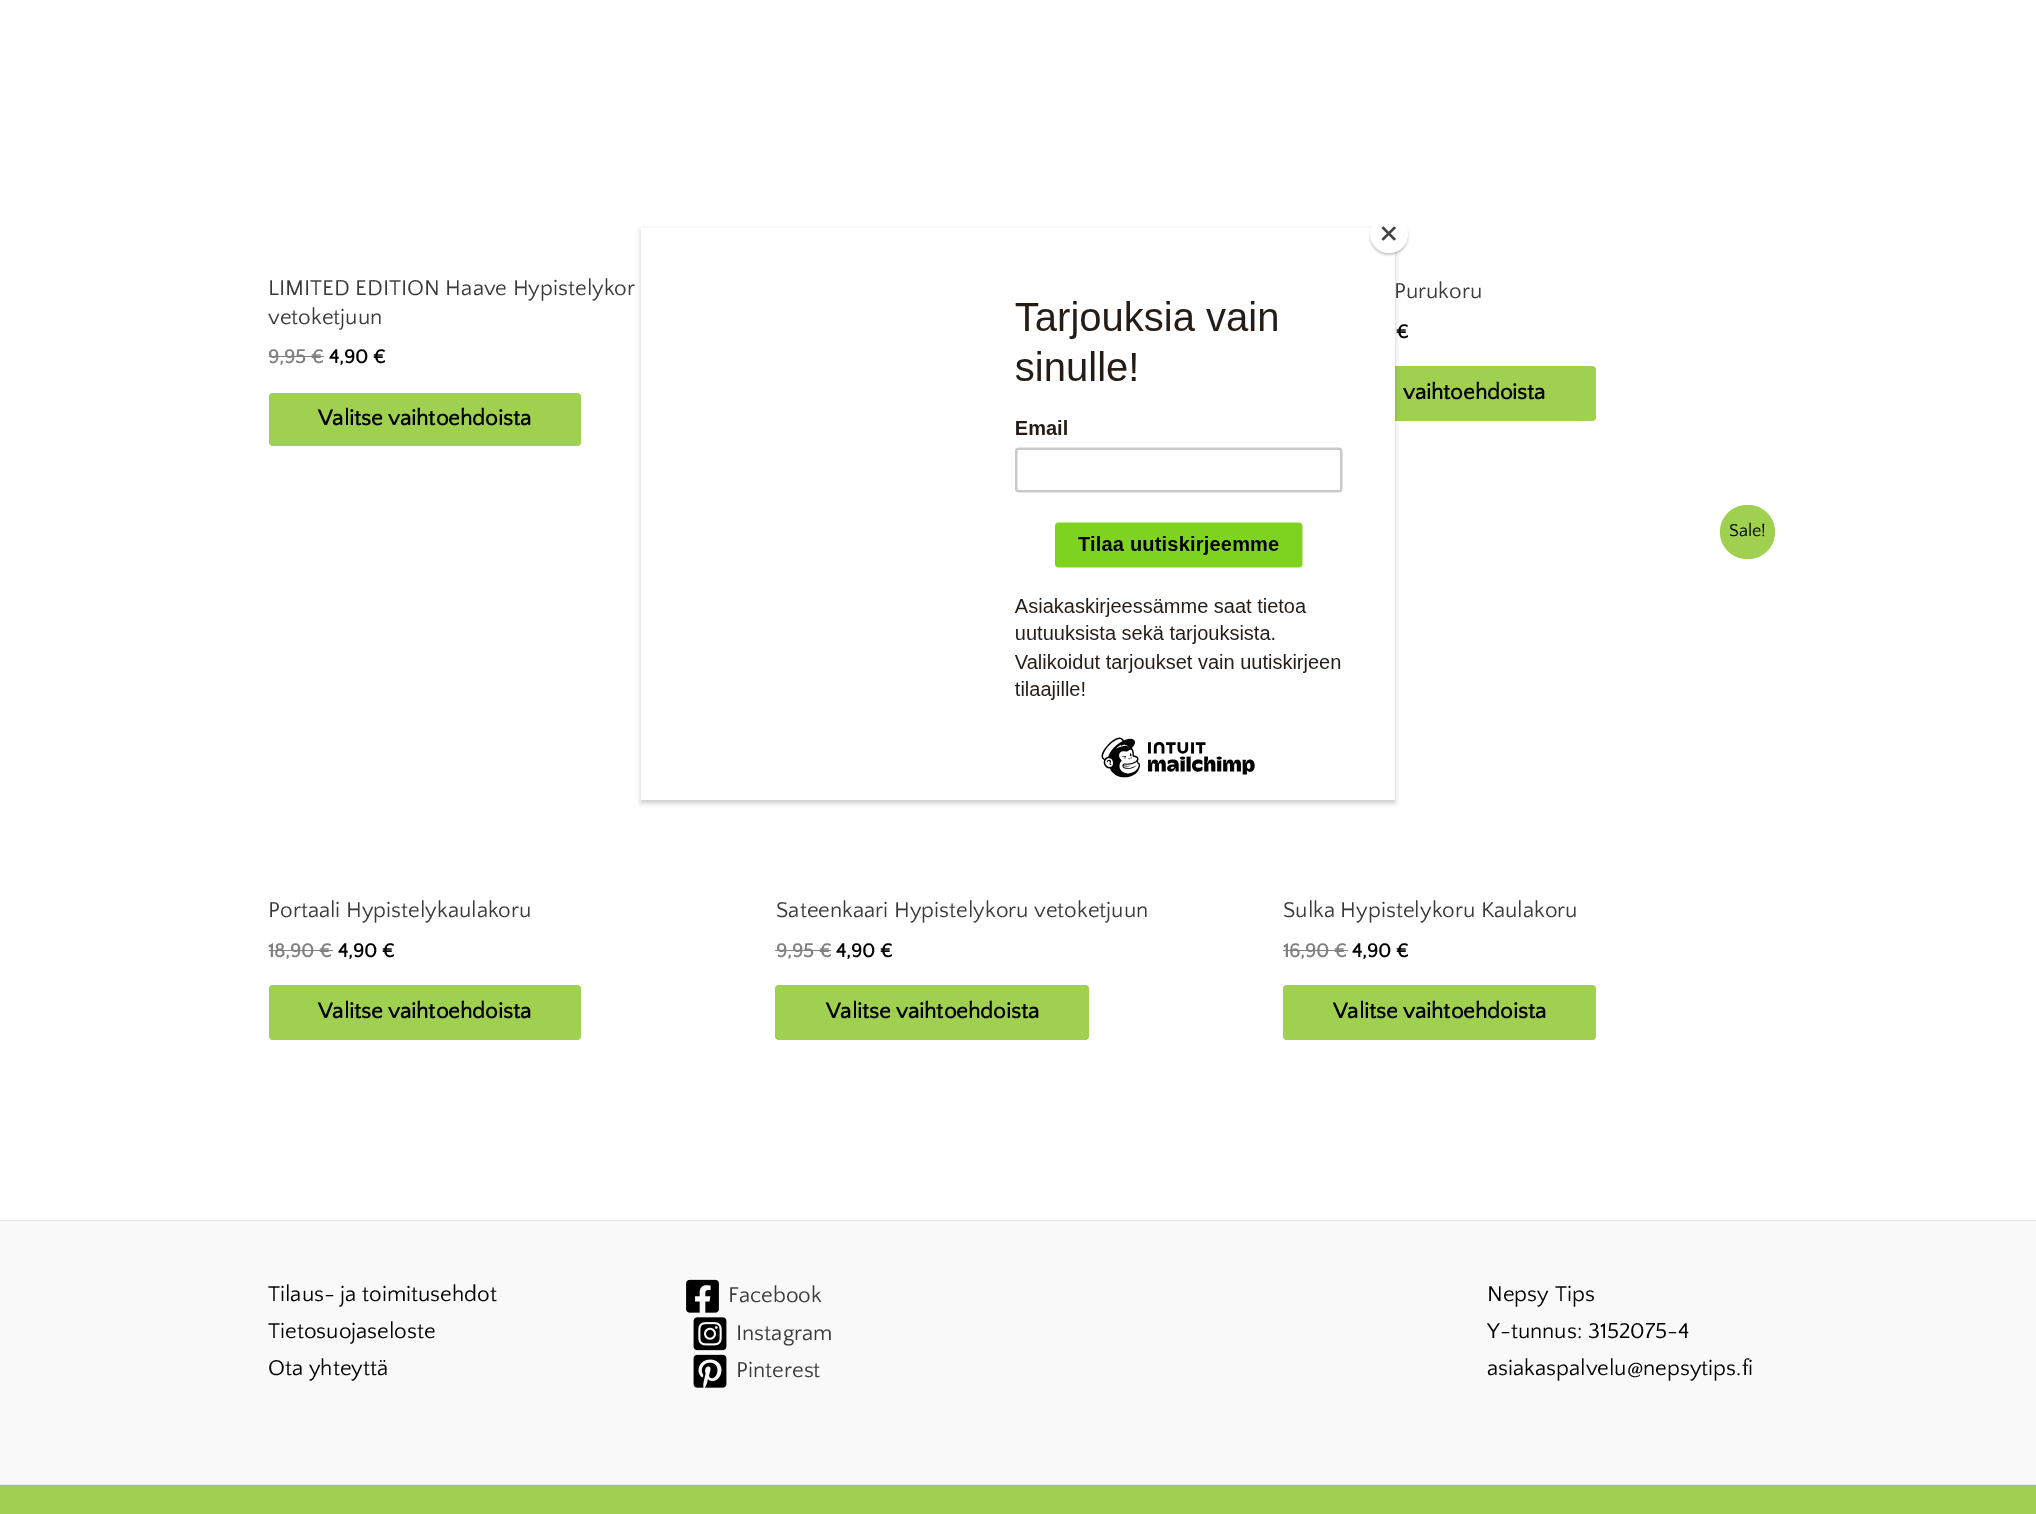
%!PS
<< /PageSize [2036 1514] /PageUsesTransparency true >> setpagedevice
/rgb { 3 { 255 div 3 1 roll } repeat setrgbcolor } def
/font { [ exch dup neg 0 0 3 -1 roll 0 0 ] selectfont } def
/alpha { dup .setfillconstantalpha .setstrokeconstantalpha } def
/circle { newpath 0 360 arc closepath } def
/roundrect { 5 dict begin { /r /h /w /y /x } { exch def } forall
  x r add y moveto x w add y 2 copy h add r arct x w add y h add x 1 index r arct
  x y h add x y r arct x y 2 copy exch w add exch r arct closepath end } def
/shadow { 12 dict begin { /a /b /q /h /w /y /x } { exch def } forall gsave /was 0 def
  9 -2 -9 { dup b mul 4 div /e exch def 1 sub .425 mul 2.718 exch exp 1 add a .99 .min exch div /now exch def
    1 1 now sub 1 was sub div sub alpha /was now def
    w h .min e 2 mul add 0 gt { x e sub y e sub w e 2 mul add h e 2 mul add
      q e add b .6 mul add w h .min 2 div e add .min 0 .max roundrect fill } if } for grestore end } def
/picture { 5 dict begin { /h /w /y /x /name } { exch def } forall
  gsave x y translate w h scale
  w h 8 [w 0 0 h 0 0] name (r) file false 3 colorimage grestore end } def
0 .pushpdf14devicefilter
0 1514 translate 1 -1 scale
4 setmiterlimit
255 255 255 rgb
0 0 2036 1514 rectfill
159 208 80 rgb
1283 366 313 55 4 roundrect fill
gsave
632 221 moveto 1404 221 lineto 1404 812 lineto 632 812 lineto closepath 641 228 moveto 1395 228 lineto 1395 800 lineto 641 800 lineto closepath eoclip newpath
0 0 0 rgb
641 230 754 573 0 2.5 0.2 shadow
grestore
(img/1.rgb) 641 230 754 570 picture
0 0 0 rgb
1370 218 38 37 18.5 1 0.2 shadow
255 255 255 rgb
1389 234 19 circle fill
65 65 65 rgb
1394 226.5 moveto 1396 228 lineto 1383.5 240.5 lineto 1381.5 239 lineto closepath fill
1381.5 228 moveto 1383.5 226.5 lineto 1396 239 lineto 1394 240.5 lineto closepath fill
128 128 128 rgb
269 356 55 1 rectfill
159 208 80 rgb
269 393 312 53 4 roundrect fill
128 128 128 rgb
269 950 64 1 rectfill
159 208 80 rgb
269 985 312 55 4 roundrect fill
128 128 128 rgb
775 950 56 1 rectfill
159 208 80 rgb
775 985 314 55 4 roundrect fill
1720 505 55 54 27 roundrect fill
128 128 128 rgb
1283 950 65 1 rectfill
159 208 80 rgb
1283 985 313 55 4 roundrect fill
249 249 249 rgb
0 1221 2036 263 rectfill
229 229 229 rgb
0 1220 2036 1 rectfill
(img/2.rgb) 686 1279 33 34 picture
(img/3.rgb) 693 1317 34 34 picture
(img/4.rgb) 693 1354 34 34 picture
159 208 80 rgb
0 1485 2036 29 rectfill
229 229 229 rgb
0 1484 2036 1 rectfill
/QuattrocentoSans-Regular 22.5 font
58 58 58 rgb
268 295 moveto (LIMITED EDITION Haave Hypistelykor) show
268 324 moveto (vetoketjuun) show
/QuattrocentoSans-Bold 20 font
128 128 128 rgb
268 363 moveto (9,95 €) show
0 0 0 rgb
329 363 moveto (4,90 €) show
/QuattrocentoSans-Bold 22.5 font
318 425 moveto (Valitse vaihtoehdoista) show
/QuattrocentoSans-Regular 22.5 font
58 58 58 rgb
1394 298 moveto (Purukoru) show
/QuattrocentoSans-Bold 20 font
0 0 0 rgb
1396 338 moveto (€) show
/QuattrocentoSans-Bold 22.5 font
1403 399 moveto (vaihtoehdoista) show
/QuattrocentoSans-Regular 22.5 font
58 58 58 rgb
268 917 moveto (Portaali Hypistelykaulakoru) show
/QuattrocentoSans-Bold 20 font
128 128 128 rgb
268 957 moveto (18,90 €) show
0 0 0 rgb
338 957 moveto (4,90 €) show
/QuattrocentoSans-Bold 22.5 font
318 1018 moveto (Valitse vaihtoehdoista) show
/QuattrocentoSans-Regular 22.5 font
58 58 58 rgb
776 917 moveto (Sateenkaari Hypistelykoru vetoketjuun) show
/QuattrocentoSans-Bold 20 font
128 128 128 rgb
776 957 moveto (9,95 €) show
0 0 0 rgb
836 957 moveto (4,90 €) show
/QuattrocentoSans-Bold 22.5 font
826 1018 moveto (Valitse vaihtoehdoista) show
/QuattrocentoSans-Regular 18 font
1729 536 moveto (Sale!) show
/QuattrocentoSans-Regular 22.5 font
58 58 58 rgb
1283 917 moveto (Sulka Hypistelykoru Kaulakoru) show
/QuattrocentoSans-Bold 20 font
128 128 128 rgb
1283 957 moveto (16,90 €) show
0 0 0 rgb
1352 957 moveto (4,90 €) show
/QuattrocentoSans-Bold 22.5 font
1333 1018 moveto (Valitse vaihtoehdoista) show
/QuattrocentoSans-Regular 22.5 font
[
  [(Tilaus- ja toimitusehdot) 268 1301]
  [(Tietosuojaseloste) 268 1338]
  [(Ota yhteyttä) 268 1375]
] { aload pop moveto show } forall
58 58 58 rgb
[
  [(Facebook) 728 1302]
  [(Instagram) 736 1340]
  [(Pinterest) 736 1377]
] { aload pop moveto show } forall
0 0 0 rgb
[
  [(Nepsy Tips) 1487 1301]
  [(Y-tunnus: 3152075-4) 1487 1338]
  [(asiakaspalvelu@nepsytips.fi) 1487 1375]
] { aload pop moveto show } forall
.poppdf14devicefilter showpage
